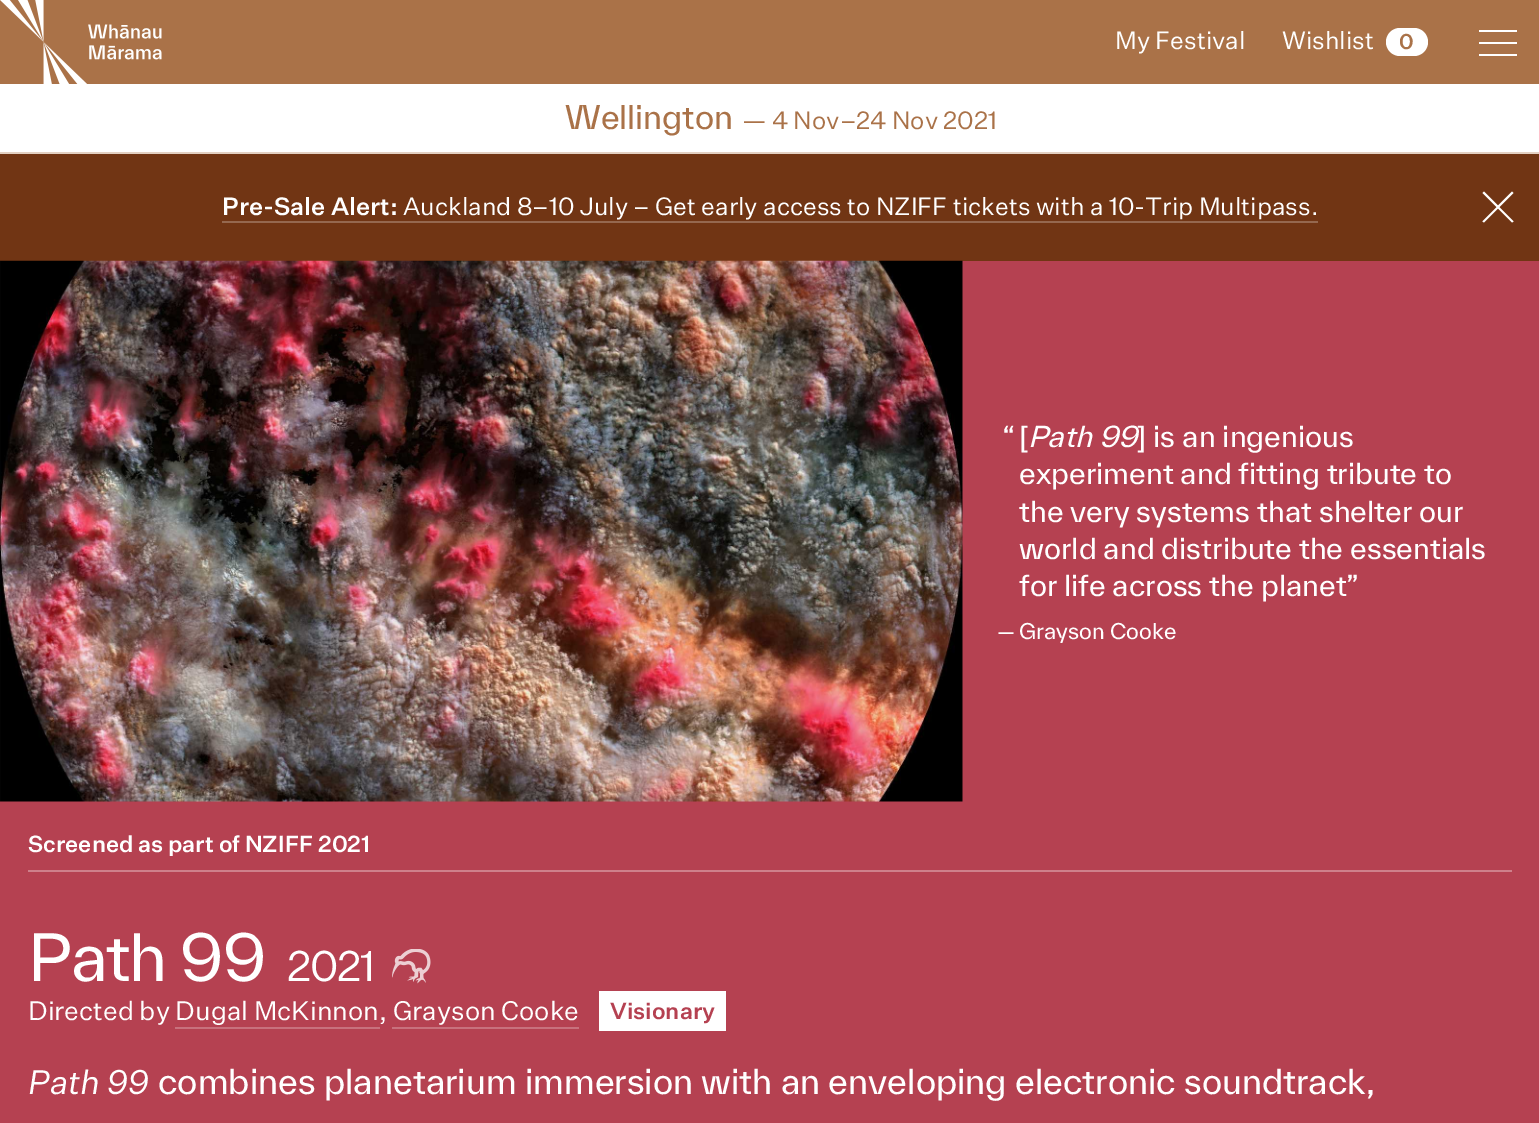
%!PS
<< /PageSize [1539 1123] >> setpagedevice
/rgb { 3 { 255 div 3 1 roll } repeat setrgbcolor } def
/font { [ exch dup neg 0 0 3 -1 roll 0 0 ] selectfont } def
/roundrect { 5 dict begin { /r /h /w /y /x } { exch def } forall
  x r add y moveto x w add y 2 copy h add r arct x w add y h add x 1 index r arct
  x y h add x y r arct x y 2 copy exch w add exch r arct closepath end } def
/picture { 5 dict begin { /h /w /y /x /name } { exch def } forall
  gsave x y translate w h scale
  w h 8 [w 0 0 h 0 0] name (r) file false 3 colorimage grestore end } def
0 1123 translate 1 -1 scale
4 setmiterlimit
255 255 255 rgb
0 0 1539 1123 rectfill
[
  [0 0 1539 84 170 114 72]
  [1479 30 38 2 255 255 255]
  [1479 42 38 2 255 255 255]
  [1479 54 38 2 255 255 255]
] { aload pop rgb rectfill } forall
(img/1.rgb) 0 0 162 84 picture
1386 28 42 28 14 roundrect fill
[
  [0 152 1539 2 227 208 194]
  [0 154 1539 107 113 53 20]
  [222 221 1096 2 149 104 79]
] { aload pop rgb rectfill } forall
255 255 255 rgb
1484 191.5 moveto 1513.5 221.5 lineto 1512 222.5 lineto 1482.5 193 lineto closepath fill
1512 191.5 moveto 1513.5 193 lineto 1484 222.5 lineto 1482.5 221.5 lineto closepath fill
181 65 81 rgb
0 261 1539 862 rectfill
(img/2.rgb) 0 260 963 542 picture
206 128 139 rgb
28 870 1484 2 rectfill
(img/3.rgb) 392 949 39 35 picture
[
  [175 1027 205 2 200 113 125]
  [392 1027 187 2 200 113 125]
  [599 991 127 40 255 255 255]
] { aload pop rgb rectfill } forall
/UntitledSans-Regular 24.5 font
1115 49 moveto (My Festival) show
1282 49 moveto (Wishlist) show
/UntitledSans-Medium 21 font
170 114 72 rgb
1399 49 moveto (0) show
/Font-Regular 31.5 font
565 129 moveto (Wellington) show
/UntitledSans-Regular 24.5 font
742 129 moveto (— 4 Nov–24 Nov 2021) show
/UntitledSans-Medium 24.5 font
255 255 255 rgb
222 215 moveto (Pre-Sale Alert:) show
/UntitledSans-Regular 24.5 font
403 215 moveto (Auckland 8–10 July – Get early access to NZIFF tickets with a 10-Trip Multipass.) show
/Font-Regular 28 font
1003 447 moveto (“) show
1019 447 moveto ([) show
/Font-Italic 28 font
1028 447 moveto (Path 99) show
/Font-Regular 28 font
[
  [(] is an ingenious) 1137 447]
  [(experiment and fitting tribute to) 1019 484]
  [(the very systems that shelter our) 1019 522]
  [(world and distribute the essentials) 1019 559]
  [(for life across the planet”) 1019 596]
] { aload pop moveto show } forall
/Font-Regular 21 font
997 639 moveto (—) show
1019 639 moveto (Grayson Cooke) show
/UntitledSans-Medium 22.75 font
28 852 moveto (Screened as part of NZIFF 2021) show
/Font-Regular 63 font
28 981 moveto -1.25 0 (Path 99) ashow
/UntitledSans-Regular 42 font
287 981 moveto -1.25 0 (2021) ashow
/UntitledSans-Regular 26.25 font
28 1020 moveto (Directed by Dugal McKinnon, Grayson Cooke) show
/UntitledSans-Medium 22.75 font
181 65 81 rgb
610 1019 moveto (Visionary) show
/UntitledSans-Italic 33.25 font
255 255 255 rgb
28 1094 moveto (Path 99) show
/Font-Regular 33.25 font
158 1094 moveto (combines planetarium immersion with an enveloping electronic soundtrack,) show
showpage
